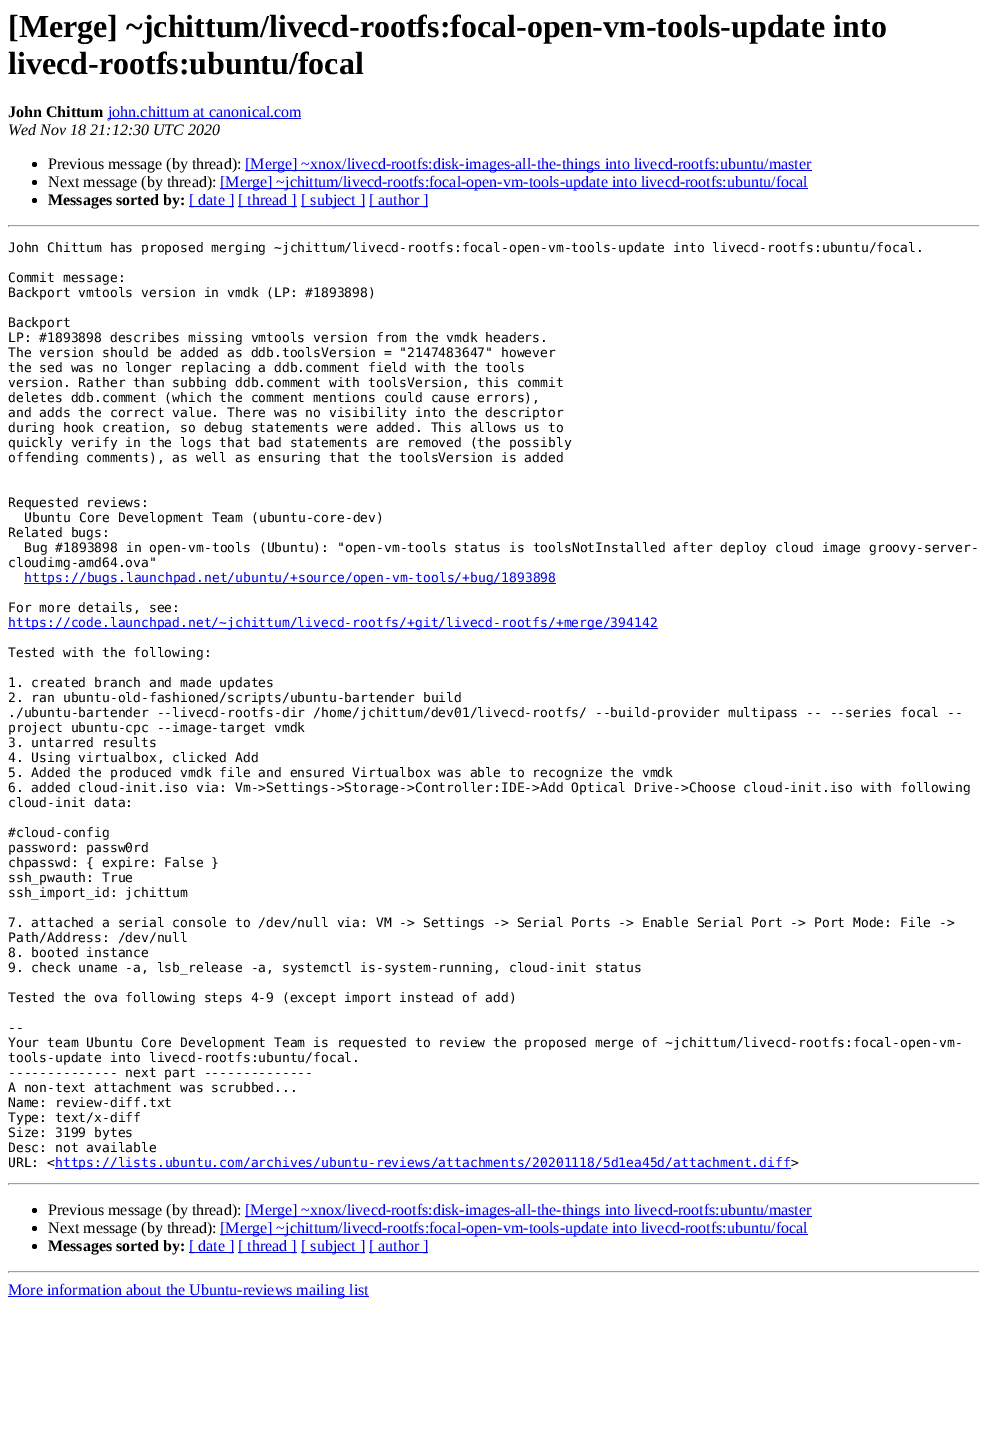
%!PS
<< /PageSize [988 1454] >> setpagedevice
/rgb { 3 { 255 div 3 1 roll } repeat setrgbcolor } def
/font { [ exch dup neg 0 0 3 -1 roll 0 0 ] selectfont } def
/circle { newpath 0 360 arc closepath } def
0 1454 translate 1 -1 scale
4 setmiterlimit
255 255 255 rgb
0 0 988 1454 rectfill
0 0 238 rgb
108 118 193 1 rectfill
0 0 0 rgb
34.5 164.5 2.5 circle fill
0 0 238 rgb
245 170 567 1 rectfill
0 0 0 rgb
34.5 182.5 2.5 circle fill
0 0 238 rgb
220 188 588 1 rectfill
0 0 0 rgb
34.5 200.5 2.5 circle fill
[
  [189 206 45 1 0 0 238]
  [238 206 59 1 0 0 238]
  [301 206 64 1 0 0 238]
  [369 206 59 1 0 0 238]
  [8 225 972 1 159 159 159]
  [979 225 1 2 238 238 238]
  [8 226 972 1 238 238 238]
  [8 225 1 2 159 159 159]
  [24 583 532 1 0 0 238]
  [8 628 650 1 0 0 238]
  [55 1168 736 1 0 0 238]
  [8 1183 972 1 159 159 159]
  [979 1183 1 2 238 238 238]
  [8 1184 972 1 238 238 238]
  [8 1183 1 2 159 159 159]
] { aload pop rgb rectfill } forall
0 0 0 rgb
34.5 1210.5 2.5 circle fill
0 0 238 rgb
245 1216 567 1 rectfill
0 0 0 rgb
34.5 1228.5 2.5 circle fill
0 0 238 rgb
220 1234 588 1 rectfill
0 0 0 rgb
34.5 1246.5 2.5 circle fill
[
  [189 1252 45 1 0 0 238]
  [238 1252 59 1 0 0 238]
  [301 1252 64 1 0 0 238]
  [369 1252 59 1 0 0 238]
  [8 1271 972 1 159 159 159]
  [979 1271 1 2 238 238 238]
  [8 1272 972 1 238 238 238]
  [8 1271 1 2 159 159 159]
  [8 1296 361 1 0 0 238]
] { aload pop rgb rectfill } forall
/LiberationSerif-Bold 32 font
0 0 0 rgb
8 37 moveto ([Merge] ~jchittum/livecd-rootfs:focal-open-vm-tools-update into) show
8 74 moveto (livecd-rootfs:ubuntu/focal) show
/LiberationSerif-Bold 16 font
8 117 moveto (John Chittum) show
/LiberationSerif-Regular 16 font
0 0 238 rgb
108 117 moveto (john.chittum at canonical.com) show
/LiberationSerif-Italic 16 font
0 0 0 rgb
8 135 moveto (Wed Nov 18 21:12:30 UTC 2020) show
/LiberationSerif-Regular 16 font
48 169 moveto (Previous message \(by thread\):) show
0 0 238 rgb
245 169 moveto ([Merge] ~xnox/livecd-rootfs:disk-images-all-the-things into livecd-rootfs:ubuntu/master) show
0 0 0 rgb
48 187 moveto (Next message \(by thread\):) show
0 0 238 rgb
220 187 moveto ([Merge] ~jchittum/livecd-rootfs:focal-open-vm-tools-update into livecd-rootfs:ubuntu/focal) show
/LiberationSerif-Bold 16 font
0 0 0 rgb
48 205 moveto (Messages sorted by:) show
/LiberationSerif-Regular 16 font
0 0 238 rgb
[
  [([ date ]) 189 205]
  [([ thread ]) 238 205]
  [([ subject ]) 301 205]
  [([ author ]) 369 205]
] { aload pop moveto show } forall
/DejaVuSansMono-Regular 13 font
0 0 0 rgb
[
  [(John Chittum has proposed merging ~jchittum/livecd-rootfs:focal-open-vm-tools-update into livecd-rootfs:ubuntu/focal.) 8 252]
  [(Commit message:) 8 282]
  [(Backport vmtools version in vmdk \(LP: #1893898\)) 8 297]
  [(Backport) 8 327]
  [(LP: #1893898 describes missing vmtools version from the vmdk headers.) 8 342]
  [(The version should be added as ddb.toolsVersion = "2147483647" however) 8 357]
  [(the sed was no longer replacing a ddb.comment field with the tools) 8 372]
  [(version. Rather than subbing ddb.comment with toolsVersion, this commit) 8 387]
  [(deletes ddb.comment \(which the comment mentions could cause errors\),) 8 402]
  [(and adds the correct value. There was no visibility into the descriptor) 8 417]
  [(during hook creation, so debug statements were added. This allows us to) 8 432]
  [(quickly verify in the logs that bad statements are removed \(the possibly) 8 447]
  [(offending comments\), as well as ensuring that the toolsVersion is added) 8 462]
  [(Requested reviews:) 8 507]
  [(Ubuntu Core Development Team \(ubuntu-core-dev\)) 24 522]
  [(Related bugs:) 8 537]
  [(Bug #1893898 in open-vm-tools \(Ubuntu\): "open-vm-tools status is toolsNotInstalled after deploy cloud image groovy-server-) 24 552]
  [(cloudimg-amd64.ova") 8 567]
] { aload pop moveto show } forall
0 0 238 rgb
24 582 moveto (https://bugs.launchpad.net/ubuntu/+source/open-vm-tools/+bug/1893898) show
0 0 0 rgb
8 612 moveto (For more details, see:) show
0 0 238 rgb
8 627 moveto (https://code.launchpad.net/~jchittum/livecd-rootfs/+git/livecd-rootfs/+merge/394142) show
0 0 0 rgb
[
  [(Tested with the following:) 8 657]
  [(1. created branch and made updates) 8 687]
  [(2. ran ubuntu-old-fashioned/scripts/ubuntu-bartender build) 8 702]
  [(./ubuntu-bartender --livecd-rootfs-dir /home/jchittum/dev01/livecd-rootfs/ --build-provider multipass -- --series focal --) 8 717]
  [(project ubuntu-cpc --image-target vmdk) 8 732]
  [(3. untarred results) 8 747]
  [(4. Using virtualbox, clicked Add) 8 762]
  [(5. Added the produced vmdk file and ensured Virtualbox was able to recognize the vmdk) 8 777]
  [(6. added cloud-init.iso via: Vm->Settings->Storage->Controller:IDE->Add Optical Drive->Choose cloud-init.iso with following) 8 792]
  [(cloud-init data:) 8 807]
  [(#cloud-config) 8 837]
  [(password: passw0rd) 8 852]
  [(chpasswd: { expire: False }) 8 867]
  [(ssh_pwauth: True) 8 882]
  [(ssh_import_id: jchittum) 8 897]
  [(7. attached a serial console to /dev/null via: VM -> Settings -> Serial Ports -> Enable Serial Port -> Port Mode: File ->) 8 927]
  [(Path/Address: /dev/null) 8 942]
  [(8. booted instance) 8 957]
  [(9. check uname -a, lsb_release -a, systemctl is-system-running, cloud-init status) 8 972]
  [(Tested the ova following steps 4-9 \(except import instead of add\)) 8 1002]
  [(--) 8 1032]
  [(Your team Ubuntu Core Development Team is requested to review the proposed merge of ~jchittum/livecd-rootfs:focal-open-vm-) 8 1047]
  [(tools-update into livecd-rootfs:ubuntu/focal.) 8 1062]
  [(-------------- next part --------------) 8 1077]
  [(A non-text attachment was scrubbed...) 8 1092]
  [(Name: review-diff.txt) 8 1107]
  [(Type: text/x-diff) 8 1122]
  [(Size: 3199 bytes) 8 1137]
  [(Desc: not available) 8 1152]
  [(URL: <) 8 1167]
] { aload pop moveto show } forall
0 0 238 rgb
55 1167 moveto (https://lists.ubuntu.com/archives/ubuntu-reviews/attachments/20201118/5d1ea45d/attachment.diff) show
0 0 0 rgb
791 1167 moveto (>) show
/LiberationSerif-Regular 16 font
48 1215 moveto (Previous message \(by thread\):) show
0 0 238 rgb
245 1215 moveto ([Merge] ~xnox/livecd-rootfs:disk-images-all-the-things into livecd-rootfs:ubuntu/master) show
0 0 0 rgb
48 1233 moveto (Next message \(by thread\):) show
0 0 238 rgb
220 1233 moveto ([Merge] ~jchittum/livecd-rootfs:focal-open-vm-tools-update into livecd-rootfs:ubuntu/focal) show
/LiberationSerif-Bold 16 font
0 0 0 rgb
48 1251 moveto (Messages sorted by:) show
/LiberationSerif-Regular 16 font
0 0 238 rgb
[
  [([ date ]) 189 1251]
  [([ thread ]) 238 1251]
  [([ subject ]) 301 1251]
  [([ author ]) 369 1251]
  [(More information about the Ubuntu-reviews mailing list) 8 1295]
] { aload pop moveto show } forall
showpage
